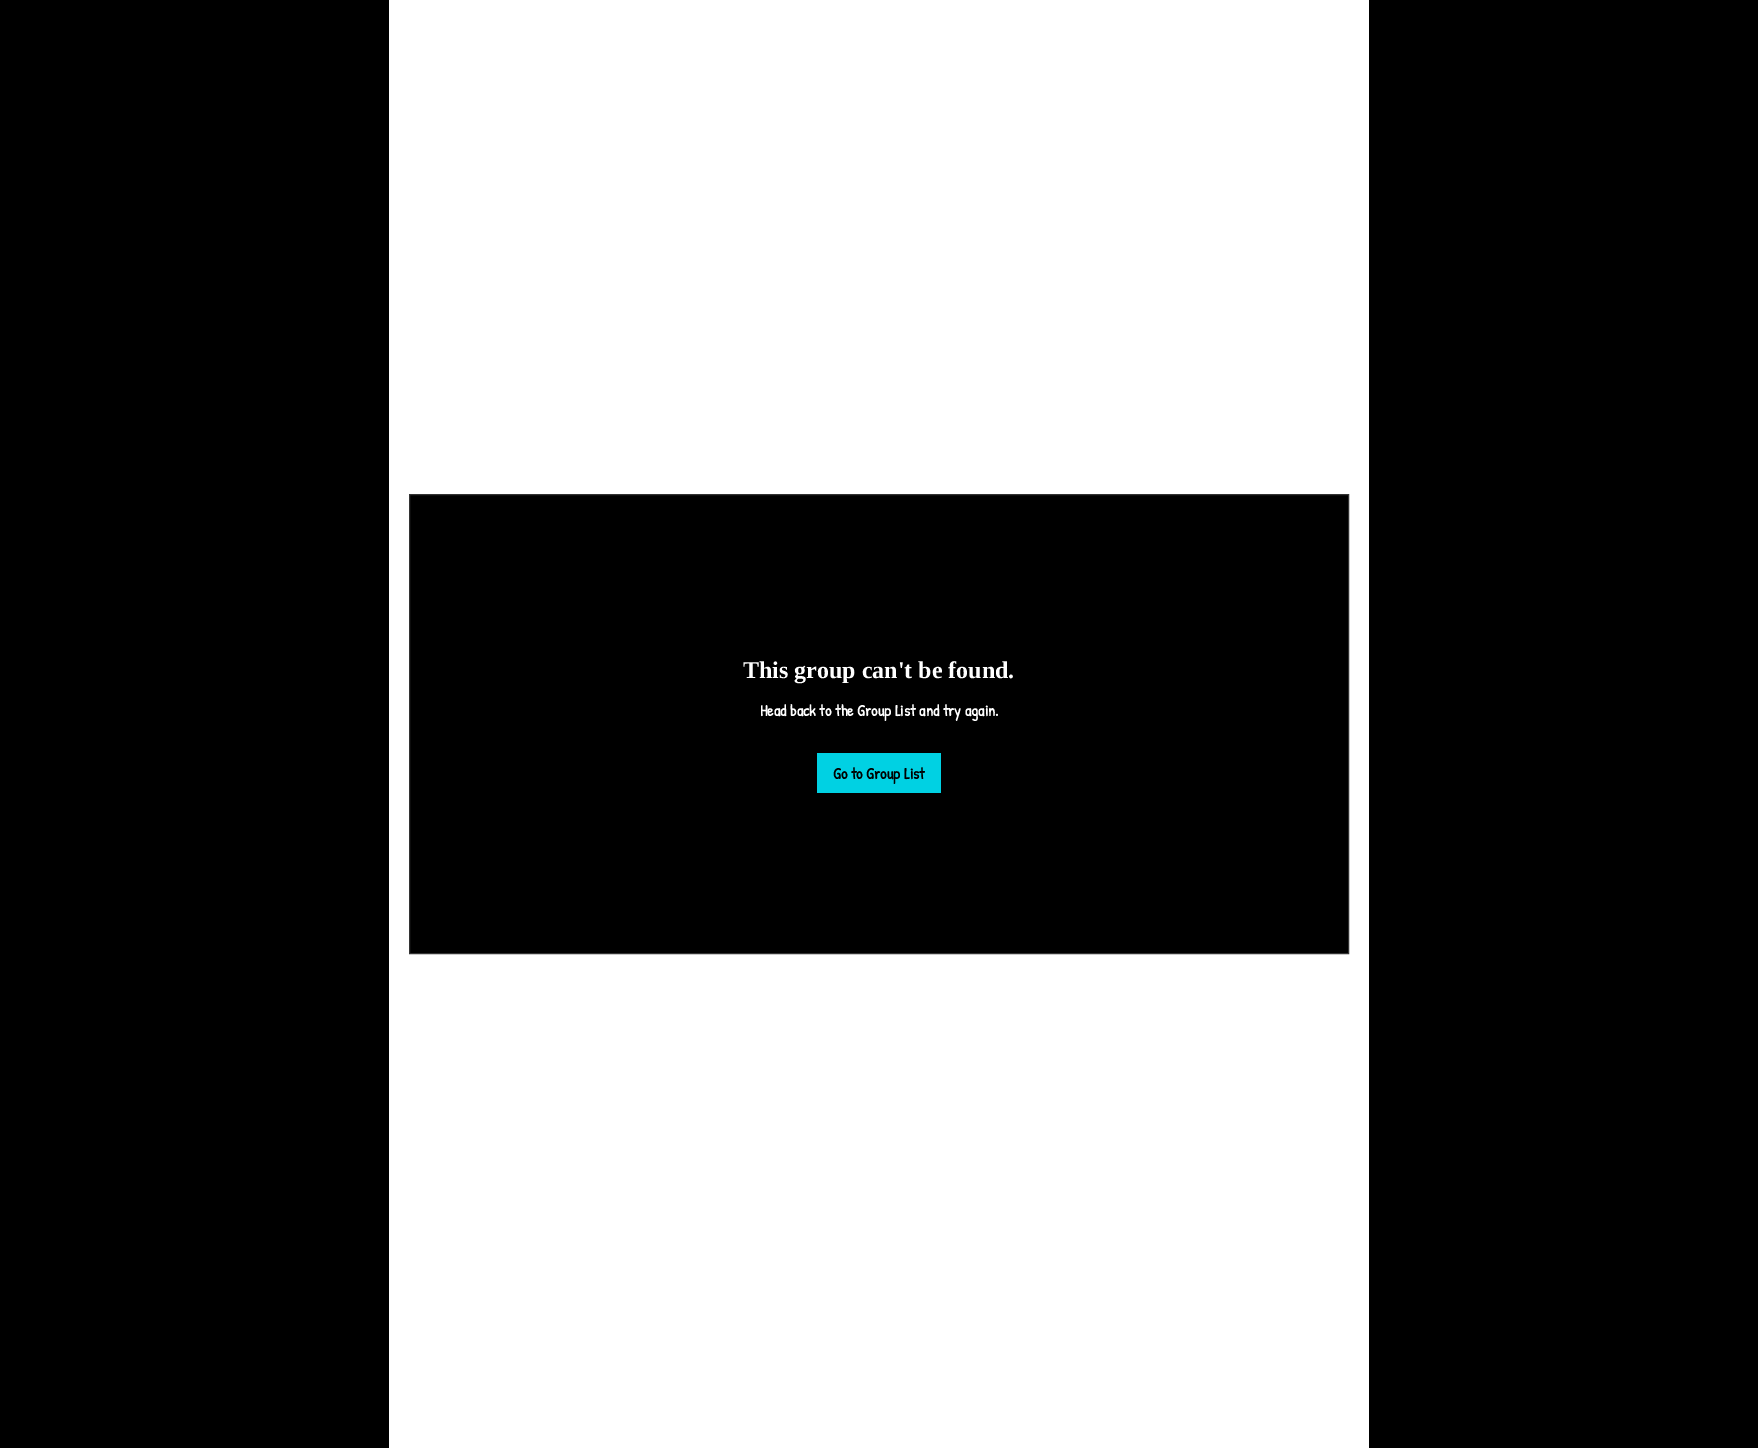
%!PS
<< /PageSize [1758 1448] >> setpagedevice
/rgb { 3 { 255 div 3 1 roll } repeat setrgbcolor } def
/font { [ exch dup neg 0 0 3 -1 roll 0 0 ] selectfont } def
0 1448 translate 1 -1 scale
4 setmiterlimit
0 0 0 rgb
0 0 1758 1448 rectfill
255 255 255 rgb
389 0 980 1448 rectfill
0 0 0 rgb
409.5 494.5 moveto 1348.5 494.5 lineto 1348.5 953.5 lineto 409.5 953.5 lineto closepath gsave fill grestore
51 51 51 rgb
stroke
0 209 227 rgb
817 753 124 40 rectfill
/LiberationSerif-Bold 24 font
255 255 255 rgb
743 678 moveto (This group can't be found.) show
/PatrickHand-Bold 16 font
760 716 moveto (Head back to the Group List and try again.) show
0 0 0 rgb
833 779 moveto (Go to Group List) show
showpage
